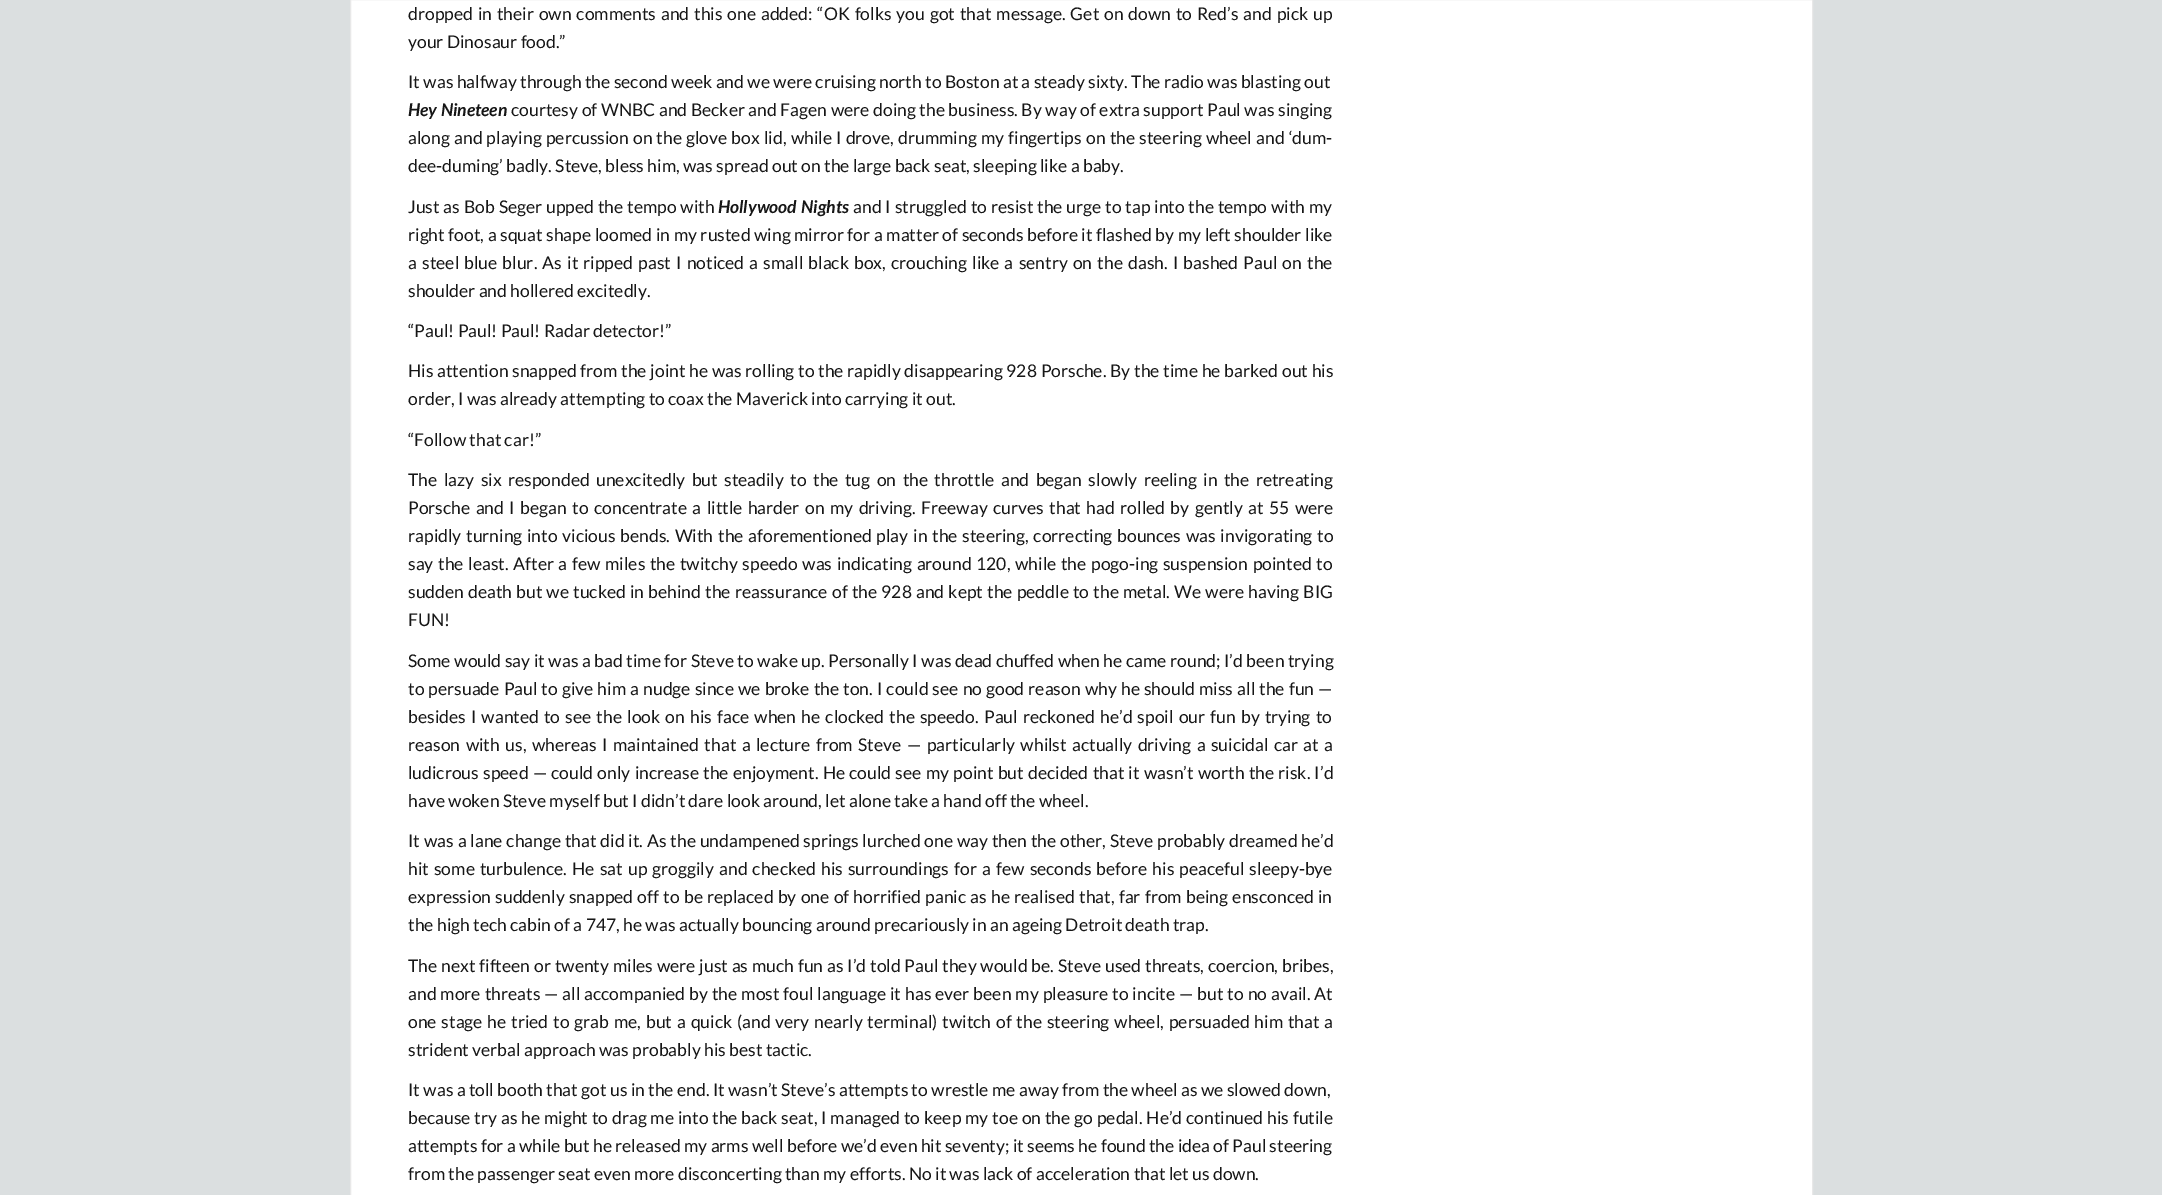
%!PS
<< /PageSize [2162 1195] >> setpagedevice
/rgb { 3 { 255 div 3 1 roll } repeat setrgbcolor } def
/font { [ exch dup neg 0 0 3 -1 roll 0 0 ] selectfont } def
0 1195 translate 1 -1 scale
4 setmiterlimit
219 223 224 rgb
0 0 2162 1195 rectfill
255 255 255 rgb
350.5 -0.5 moveto 1812.5 -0.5 lineto 1812.5 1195.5 lineto 350.5 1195.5 lineto closepath gsave fill grestore
232 232 232 rgb
stroke
/Lato-Regular 17.5 font
22 22 22 rgb
408 20 moveto 1.5 0 32 (dropped in their own comments and this one added: “OK folks you got that message. Get on down to Red’s and pick up) widthshow
408 48 moveto (your Dinosaur food.”) show
408 88 moveto (It was halfway through the second week and we were cruising north to Boston at a steady sixty. The radio was blasting out) show
/Lato-BoldItalic 17.5 font
408 116 moveto (Hey Nineteen) show
/Lato-Regular 17.5 font
511 116 moveto 0.25 0 32 (courtesy of WNBC and Becker and Fagen were doing the business. By way of extra support Paul was singing) widthshow
408 144 moveto 0.8 0 32 (along and playing percussion on the glove box lid, while I drove, drumming my fingertips on the steering wheel and ‘dum-) widthshow
408 172 moveto (dee-duming’ badly. Steve, bless him, was spread out on the large back seat, sleeping like a baby.) show
408 213 moveto 0.5 0 32 (Just as Bob Seger upped the tempo with) widthshow
/Lato-BoldItalic 17.5 font
718 213 moveto 1 0 32 (Hollywood Nights) widthshow
/Lato-Regular 17.5 font
853 213 moveto 0.5 0 32 (and I struggled to resist the urge to tap into the tempo with my) widthshow
408 241 moveto 0.25 0 32 (right foot, a squat shape loomed in my rusted wing mirror for a matter of seconds before it flashed by my left shoulder like) widthshow
408 269 moveto 1.8 0 32 (a steel blue blur. As it ripped past I noticed a small black box, crouching like a sentry on the dash. I bashed Paul on the) widthshow
408 297 moveto (shoulder and hollered excitedly.) show
408 337 moveto (“Paul! Paul! Paul! Radar detector!”) show
408 377 moveto 0.4 0 32 (His attention snapped from the joint he was rolling to the rapidly disappearing 928 Porsche. By the time he barked out his) widthshow
408 405 moveto (order, I was already attempting to coax the Maverick into carrying it out.) show
408 446 moveto (“Follow that car!”) show
408 486 moveto 3.1 0 32 (The lazy six responded unexcitedly but steadily to the tug on the throttle and began slowly reeling in the retreating) widthshow
408 514 moveto 2.1 0 32 (Porsche and I began to concentrate a little harder on my driving. Freeway curves that had rolled by gently at 55 were) widthshow
408 542 moveto 1.4 0 32 (rapidly turning into vicious bends. With the aforementioned play in the steering, correcting bounces was invigorating to) widthshow
408 570 moveto 1.3 0 32 (say the least. After a few miles the twitchy speedo was indicating around 120, while the pogo-ing suspension pointed to) widthshow
408 598 moveto 0.8 0 32 (sudden death but we tucked in behind the reassurance of the 928 and kept the peddle to the metal. We were having BIG) widthshow
408 626 moveto (FUN!) show
408 667 moveto 0.2 0 32 (Some would say it was a bad time for Steve to wake up. Personally I was dead chuffed when he came round; I’d been trying) widthshow
408 695 moveto 0.75 0 32 (to persuade Paul to give him a nudge since we broke the ton. I could see no good reason why he should miss all the fun —) widthshow
408 723 moveto 1.8 0 32 (besides I wanted to see the look on his face when he clocked the speedo. Paul reckoned he’d spoil our fun by trying to) widthshow
408 751 moveto 2.1 0 32 (reason with us, whereas I maintained that a lecture from Steve — particularly whilst actually driving a suicidal car at a) widthshow
408 779 moveto 0.9 0 32 (ludicrous speed — could only increase the enjoyment. He could see my point but decided that it wasn’t worth the risk. I’d) widthshow
408 807 moveto (have woken Steve myself but I didn’t dare look around, let alone take a hand off the wheel.) show
408 847 moveto 0.5 0 32 (It was a lane change that did it. As the undampened springs lurched one way then the other, Steve probably dreamed he’d) widthshow
408 875 moveto 1.75 0 32 (hit some turbulence. He sat up groggily and checked his surroundings for a few seconds before his peaceful sleepy-bye) widthshow
408 903 moveto 0.9 0 32 (expression suddenly snapped off to be replaced by one of horrified panic as he realised that, far from being ensconced in) widthshow
408 931 moveto (the high tech cabin of a 747, he was actually bouncing around precariously in an ageing Detroit death trap.) show
408 972 moveto 0.5 0 32 (The next fifteen or twenty miles were just as much fun as I’d told Paul they would be. Steve used threats, coercion, bribes,) widthshow
408 1000 moveto 0.6 0 32 (and more threats — all accompanied by the most foul language it has ever been my pleasure to incite — but to no avail. At) widthshow
408 1028 moveto 1.5 0 32 (one stage he tried to grab me, but a quick \(and very nearly terminal\) twitch of the steering wheel, persuaded him that a) widthshow
408 1056 moveto (strident verbal approach was probably his best tactic.) show
408 1096 moveto (It was a toll booth that got us in the end. It wasn’t Steve’s attempts to wrestle me away from the wheel as we slowed down,) show
408 1124 moveto 0.5 0 32 (because try as he might to drag me into the back seat, I managed to keep my toe on the go pedal. He’d continued his futile) widthshow
408 1152 moveto (attempts for a while but he released my arms well before we’d even hit seventy; it seems he found the idea of Paul steering) show
408 1180 moveto (from the passenger seat even more disconcerting than my efforts. No it was lack of acceleration that let us down.) show
showpage
